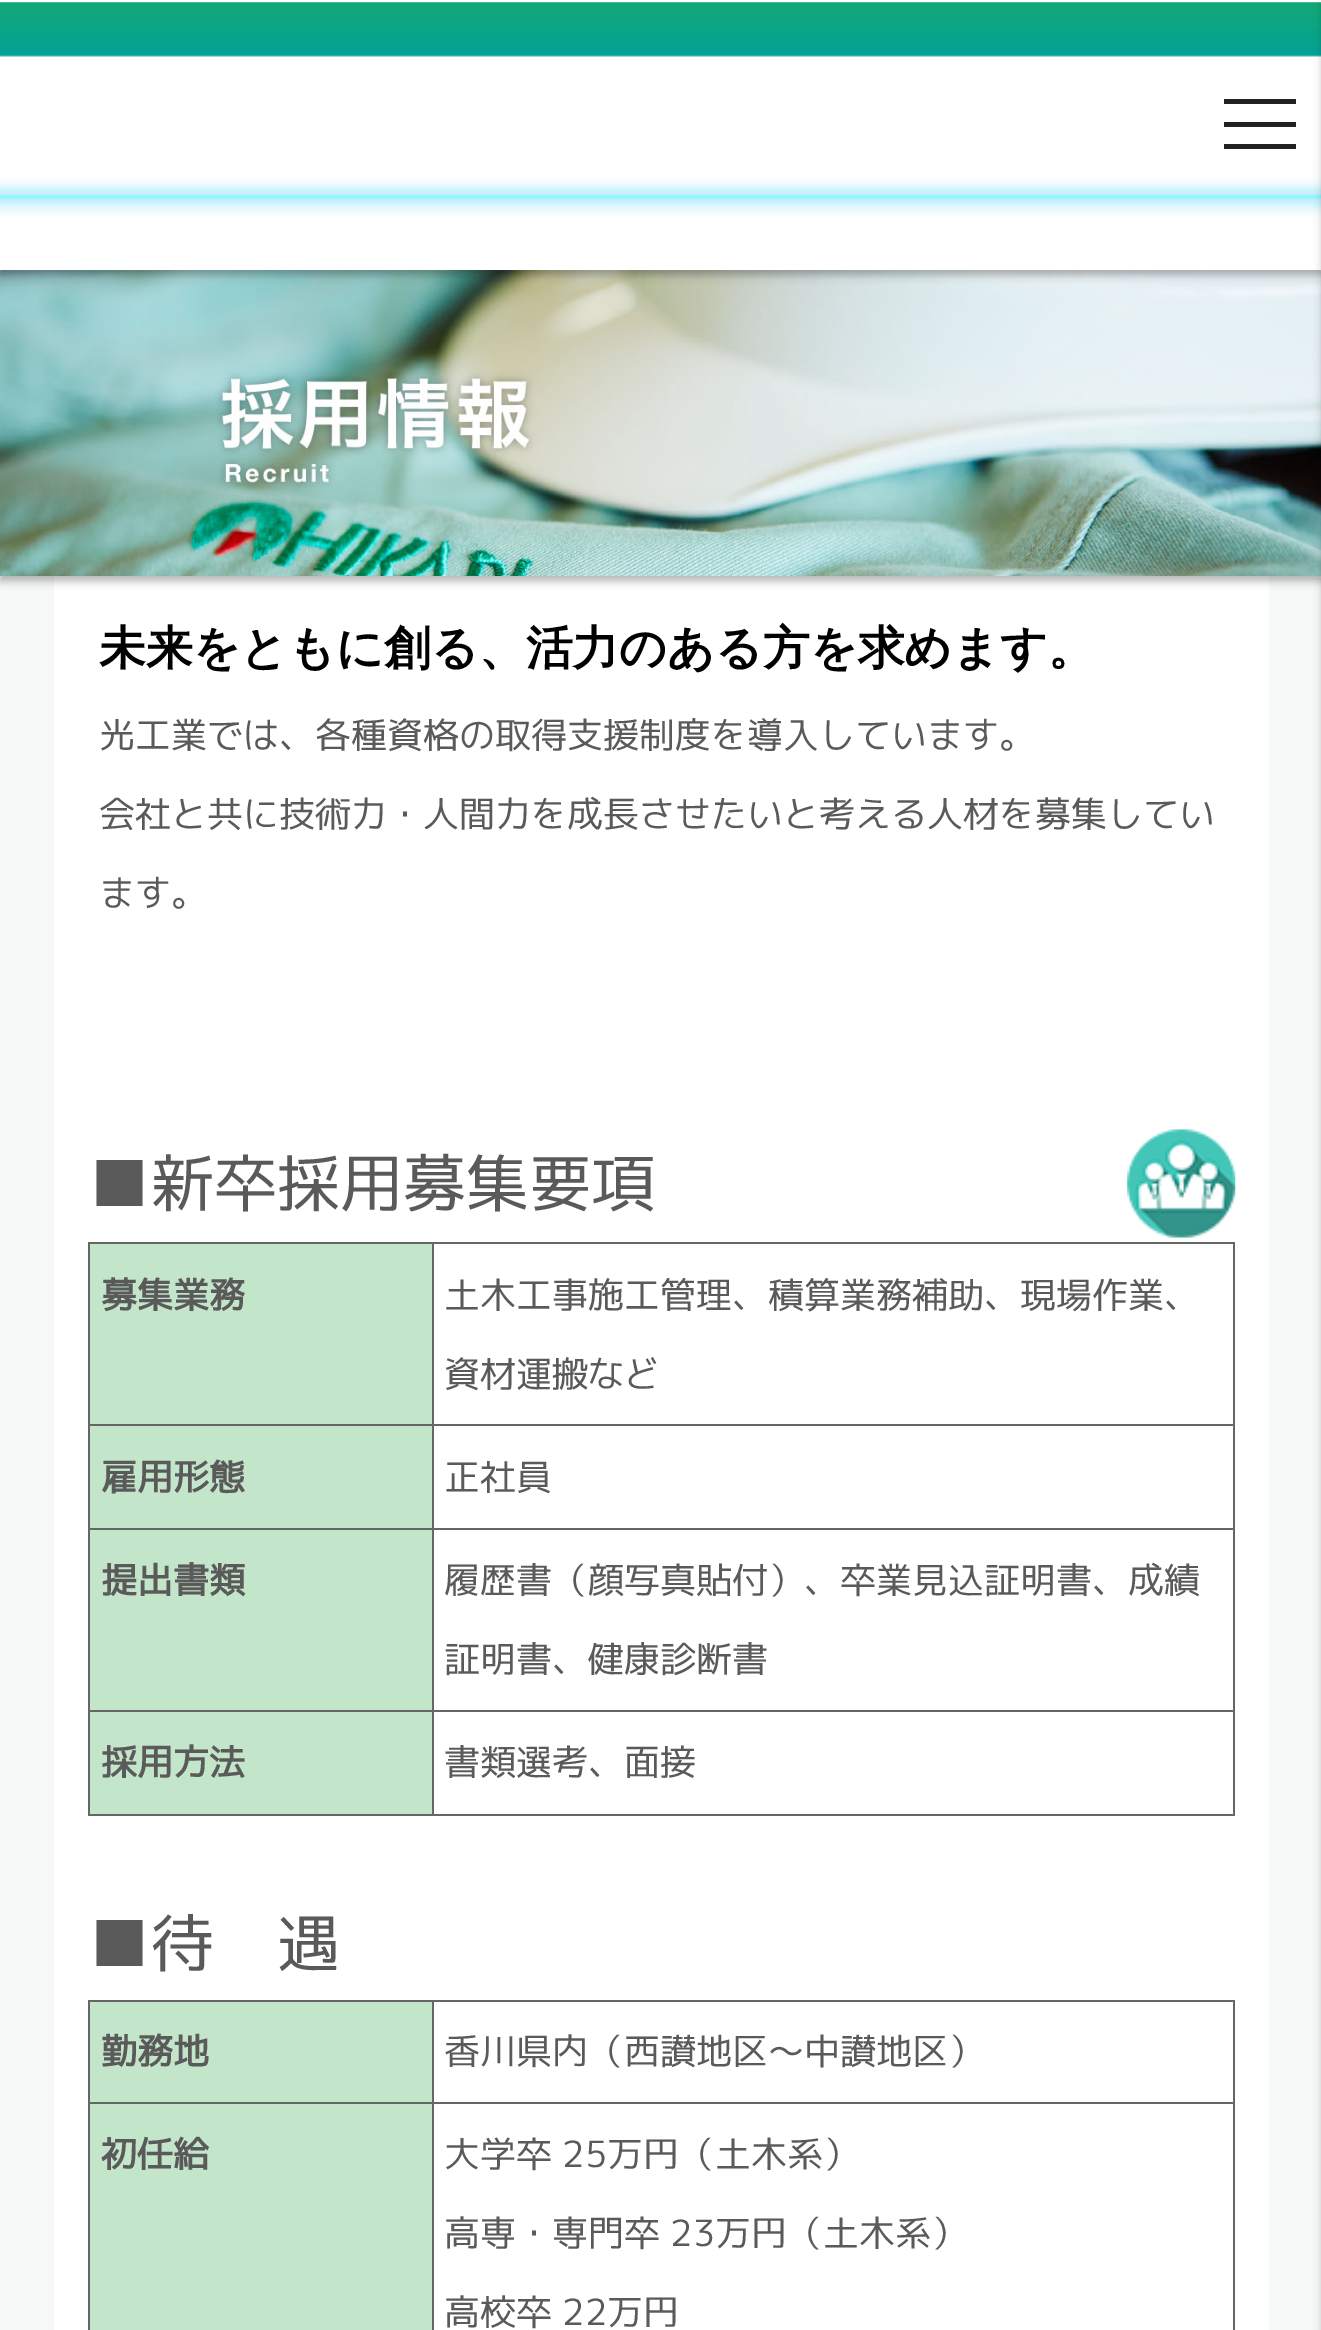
%!PS
<< /PageSize [1321 2330] /PageUsesTransparency true >> setpagedevice
/rgb { 3 { 255 div 3 1 roll } repeat setrgbcolor } def
/font { [ exch dup neg 0 0 3 -1 roll 0 0 ] selectfont } def
/alpha { dup .setfillconstantalpha .setstrokeconstantalpha } def
/roundrect { 5 dict begin { /r /h /w /y /x } { exch def } forall
  x r add y moveto x w add y 2 copy h add r arct x w add y h add x 1 index r arct
  x y h add x y r arct x y 2 copy exch w add exch r arct closepath end } def
/shadow { 12 dict begin { /a /b /q /h /w /y /x } { exch def } forall gsave /was 0 def
  9 -2 -9 { dup b mul 4 div /e exch def 1 sub .425 mul 2.718 exch exp 1 add a .99 .min exch div /now exch def
    1 1 now sub 1 was sub div sub alpha /was now def
    w h .min e 2 mul add 0 gt { x e sub y e sub w e 2 mul add h e 2 mul add
      q e add b .6 mul add w h .min 2 div e add .min 0 .max roundrect fill } if } for grestore end } def
/picture { 5 dict begin { /h /w /y /x /name } { exch def } forall
  gsave x y translate w h scale
  w h 8 [w 0 0 h 0 0] name (r) file false 3 colorimage grestore end } def
0 .pushpdf14devicefilter
0 2330 translate 1 -1 scale
4 setmiterlimit
247 248 248 rgb
0 0 1321 2330 rectfill
255 255 255 rgb
54 576 1215 1754 rectfill
0 0 0 rgb
0 263 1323 318 0 4.5 0.3 shadow
(img/2.rgb) 0 270 1321 306 picture
0 5 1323 270 0 4.5 0.3 shadow
255 255 255 rgb
0 0 1321 270 rectfill
(img/1.rgb) 0 2 1321 215 picture
[
  [1224 122 72 5 34 34 34]
  [1224 99 72 5 34 34 34]
  [1224 144 72 5 34 34 34]
] { aload pop rgb rectfill } forall
0 0 0 rgb
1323 5 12 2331 0 4.5 0.3 shadow
(img/3.rgb) 1127 1129 109 109 picture
[
  [90 1244 342 284 195 230 203]
  [432 1242 803 2 102 102 102]
  [432 1424 803 2 102 102 102]
  [432 1528 803 2 102 102 102]
  [432 1710 803 2 102 102 102]
  [1233 1710 2 106 102 102 102]
  [432 1814 803 2 102 102 102]
  [432 1710 2 106 102 102 102]
  [88 1710 346 2 102 102 102]
  [432 1528 2 184 102 102 102]
  [88 1528 346 2 102 102 102]
  [432 1424 2 106 102 102 102]
  [88 1424 346 2 102 102 102]
  [432 1242 2 185 102 102 102]
  [88 1242 346 2 102 102 102]
  [88 1814 346 2 102 102 102]
  [88 1710 2 106 102 102 102]
  [88 1528 2 184 102 102 102]
  [88 1424 2 106 102 102 102]
  [88 1242 2 185 102 102 102]
  [1233 1528 2 184 102 102 102]
  [1233 1424 2 106 102 102 102]
  [1233 1242 2 185 102 102 102]
  [90 1530 342 180 195 230 203]
  [90 1712 342 102 195 230 203]
  [90 2002 342 100 195 230 203]
  [432 2000 803 2 102 102 102]
  [432 2102 803 2 102 102 102]
  [432 2102 2 228 102 102 102]
  [88 2102 346 2 102 102 102]
  [432 2000 2 104 102 102 102]
  [88 2000 346 2 102 102 102]
  [88 2102 2 228 102 102 102]
  [88 2000 2 104 102 102 102]
  [1233 2102 2 228 102 102 102]
  [1233 2000 2 104 102 102 102]
  [90 2104 342 226 195 230 203]
] { aload pop rgb rectfill } forall
/WenQuanYiZenHei-Bold 46.8 font
0 0 0 rgb
99 664 moveto (未来をともに創る、活力のある方を求めます。) show
/MPLUS1p-Regular 36 font
90 90 90 rgb
[
  [(光工業では、各種資格の取得支援制度を導入しています。) 99 748]
  [(会社と共に技術力・人間力を成長させたいと考える人材を募集してい) 99 827]
  [(ます。) 99 906]
] { aload pop moveto show } forall
/MPLUS1p-Regular 63 font
88 1206 moveto (■新卒採用募集要項) show
/MPLUS1p-Bold 36 font
101 1308 moveto (募集業務) show
/MPLUS1p-Regular 36 font
444 1308 moveto (土木工事施工管理、積算業務補助、現場作業、) show
444 1387 moveto (資材運搬など) show
/MPLUS1p-Bold 36 font
101 1490 moveto (雇用形態) show
/MPLUS1p-Regular 36 font
444 1490 moveto (正社員) show
/MPLUS1p-Bold 36 font
101 1593 moveto (提出書類) show
/MPLUS1p-Regular 36 font
444 1593 moveto (履歴書（顔写真貼付）、卒業見込証明書、成績) show
444 1672 moveto (証明書、健康診断書) show
/MPLUS1p-Bold 36 font
101 1775 moveto (採用方法) show
/MPLUS1p-Regular 36 font
444 1775 moveto (書類選考、面接) show
/MPLUS1p-Regular 63 font
88 1966 moveto (■待　遇) show
/MPLUS1p-Bold 36 font
101 2064 moveto (勤務地) show
/MPLUS1p-Regular 36 font
444 2064 moveto (香川県内（西讃地区〜中讃地区）) show
/MPLUS1p-Bold 36 font
101 2167 moveto (初任給) show
/MPLUS1p-Regular 36 font
[
  [(大学卒 25万円（土木系）) 444 2167]
  [(高専・専門卒 23万円（土木系）) 444 2246]
  [(高校卒 22万円) 444 2325]
] { aload pop moveto show } forall
.poppdf14devicefilter showpage
